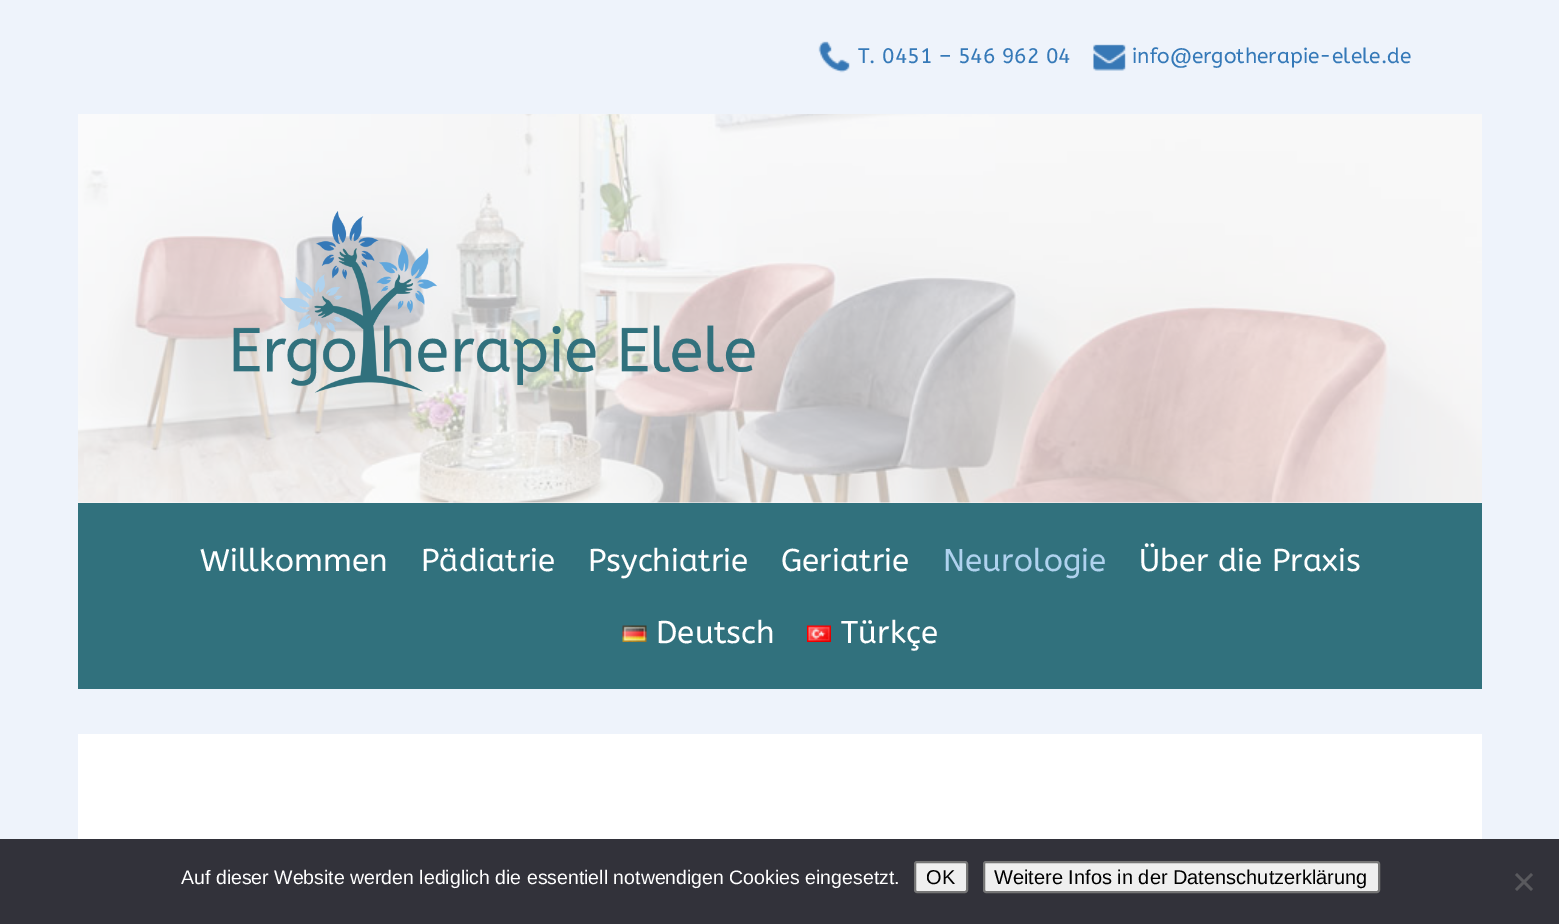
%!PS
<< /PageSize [1559 924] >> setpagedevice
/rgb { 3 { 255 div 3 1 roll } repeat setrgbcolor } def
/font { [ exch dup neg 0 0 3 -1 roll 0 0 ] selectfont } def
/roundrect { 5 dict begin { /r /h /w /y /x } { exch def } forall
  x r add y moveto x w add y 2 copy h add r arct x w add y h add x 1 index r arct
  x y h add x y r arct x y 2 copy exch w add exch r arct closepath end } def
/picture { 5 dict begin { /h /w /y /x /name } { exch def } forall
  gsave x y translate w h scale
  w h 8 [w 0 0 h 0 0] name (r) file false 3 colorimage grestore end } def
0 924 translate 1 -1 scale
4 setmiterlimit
238 243 251 rgb
0 0 1559 924 rectfill
(img/1.rgb) 818 41 32 32 picture
(img/2.rgb) 1093 44 33 27 picture
249 251 254 rgb
78 502 1404 1 rectfill
(img/3.rgb) 78 114 1404 389 picture
(img/4.rgb) 233 211 522 182 picture
49 113 125 rgb
78 503 1404 186 rectfill
(img/5.rgb) 622 625 25 17 picture
(img/6.rgb) 807 625 24 17 picture
255 255 255 rgb
78 734 1404 105 rectfill
50 50 58 rgb
0 839 1559 85 rectfill
239 239 239 rgb
915 862 52 30 2 roundrect gsave fill grestore
118 118 118 rgb
2 setlinewidth
stroke
239 239 239 rgb
984 862 395 30 2 roundrect gsave fill grestore
118 118 118 rgb
stroke
89 89 93 rgb
1531 873 moveto 1533 875 lineto 1517 891 lineto 1515 889 lineto closepath fill
1515 875 moveto 1517 873 lineto 1533 889 lineto 1531 891 lineto closepath fill
/ABeeZee-Regular 21 font
53 121 184 rgb
858 63 moveto (T. 0451 – 546 962 04) show
1132 63 moveto (info@ergotherapie-elele.de) show
/ABeeZee-Regular 31.5 font
255 255 255 rgb
[
  [(Willkommen) 200 571]
  [(Pädiatrie) 421 571]
  [(Psychiatrie) 588 571]
  [(Geriatrie) 781 571]
] { aload pop moveto show } forall
175 210 238 rgb
943 571 moveto (Neurologie) show
255 255 255 rgb
[
  [(Über die Praxis) 1139 571]
  [(Deutsch) 656 643]
  [(Türkçe) 841 643]
] { aload pop moveto show } forall
/LiberationSans-Regular 19.5 font
181 884 moveto (Auf dieser Website werden lediglich die essentiell notwendigen Cookies eingesetzt.) show
/LiberationSans-Regular 20 font
0 0 0 rgb
926 884 moveto (OK) show
994 884 moveto (Weitere Infos in der Datenschutzerklärung) show
showpage
